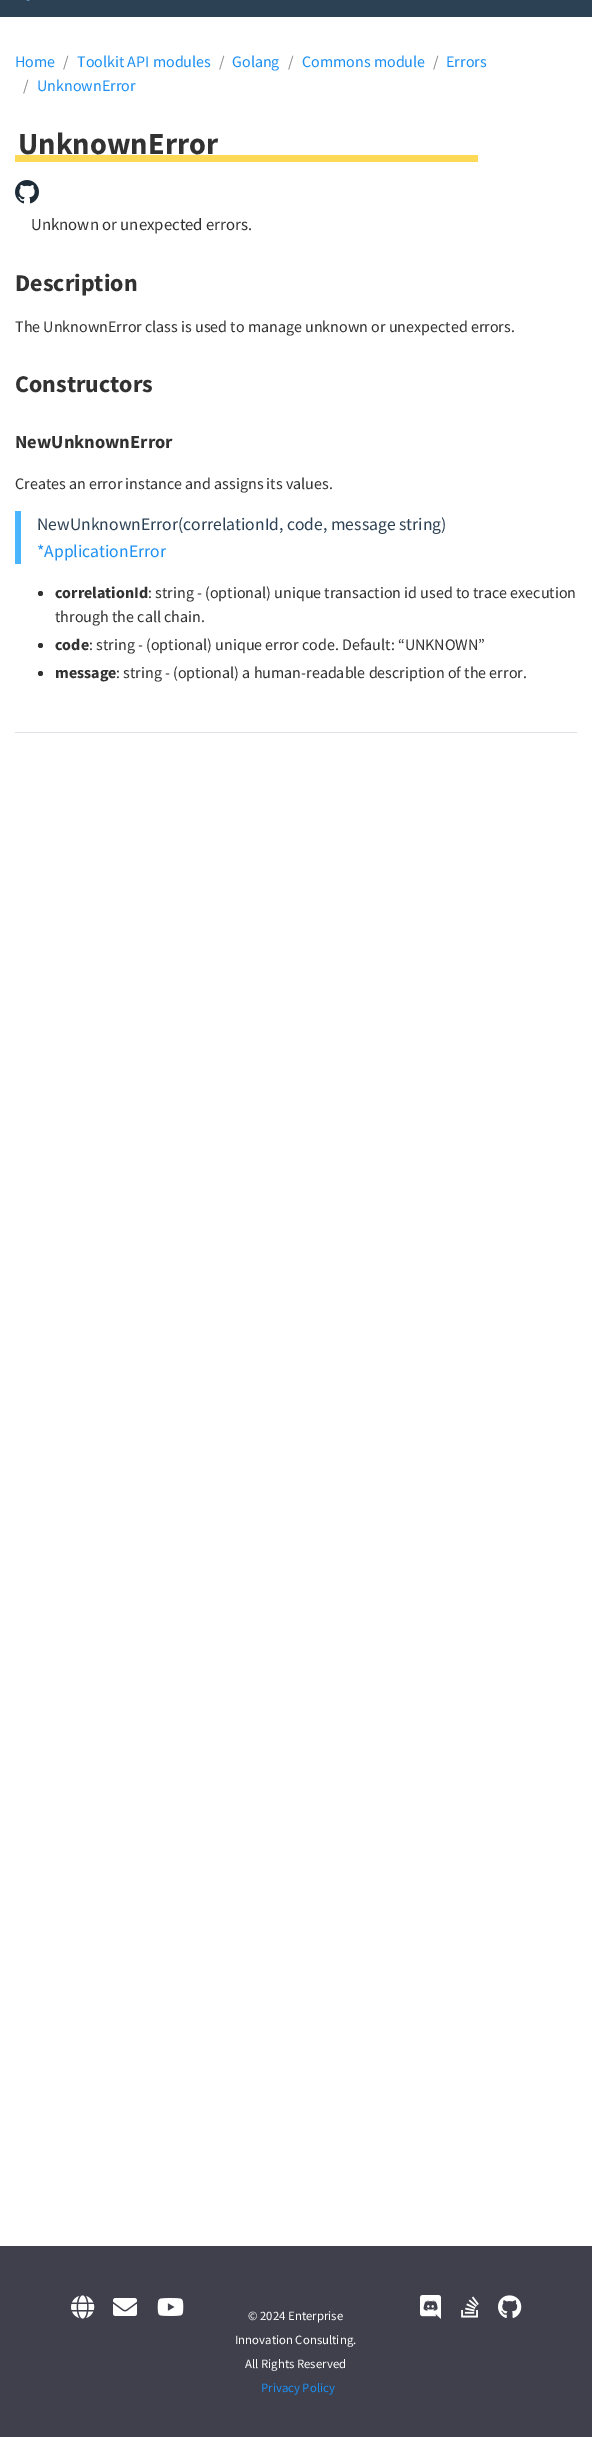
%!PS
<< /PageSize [592 2437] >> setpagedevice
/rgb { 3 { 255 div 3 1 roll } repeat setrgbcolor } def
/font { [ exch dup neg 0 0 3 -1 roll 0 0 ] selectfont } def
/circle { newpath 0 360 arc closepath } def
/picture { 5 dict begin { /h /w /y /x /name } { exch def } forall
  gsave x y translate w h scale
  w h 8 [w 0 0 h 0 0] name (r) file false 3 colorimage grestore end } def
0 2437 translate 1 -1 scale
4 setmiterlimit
255 255 255 rgb
0 0 592 2437 rectfill
44 65 84 rgb
0 0 592 17 rectfill
(img/1.rgb) 26 0 4 1 picture
254 217 85 rgb
15 155 463 7 rectfill
(img/2.rgb) 15 180 24 24 picture
75 180 255 rgb
15 511 6 53 rectfill
50 50 50 rgb
40.5 593.5 2.5 circle fill
40.5 645.5 2.5 circle fill
40.5 673.5 2.5 circle fill
222 226 230 rgb
15 732 562 1 rectfill
64 63 76 rgb
0 2246 592 191 rectfill
(img/3.rgb) 71 2295 24 24 picture
(img/4.rgb) 113 2298 24 18 picture
(img/5.rgb) 157 2298 27 18 picture
(img/6.rgb) 420 2295 21 24 picture
(img/7.rgb) 461 2296 18 22 picture
(img/8.rgb) 498 2295 24 23 picture
/SourceSansPro-Regular 16 font
28 144 243 rgb
15 67 moveto (Home) show
136 136 136 rgb
63 67 moveto (/) show
28 144 243 rgb
77 67 moveto (Toolkit API modules) show
136 136 136 rgb
219 67 moveto (/) show
28 144 243 rgb
232 67 moveto (Golang) show
136 136 136 rgb
288 67 moveto (/) show
28 144 243 rgb
302 67 moveto (Commons module) show
136 136 136 rgb
433 67 moveto (/) show
28 144 243 rgb
446 67 moveto (Errors) show
136 136 136 rgb
23 91 moveto (/) show
28 144 243 rgb
37 91 moveto (UnknownError) show
/SourceSansPro-Bold 30.5 font
50 50 50 rgb
18 154 moveto (UnknownError) show
/SourceSansPro-Regular 16.75 font
31 230 moveto (Unknown or unexpected errors.) show
/SourceSansPro-Bold 24 font
15 291 moveto (Description) show
/SourceSansPro-Regular 16 font
15 332 moveto (The UnknownError class is used to manage unknown or unexpected errors.) show
/SourceSansPro-Bold 24 font
15 392 moveto (Constructors) show
/SourceSansPro-Bold 18.5 font
15 448 moveto (NewUnknownError) show
/SourceSansPro-Regular 16 font
15 489 moveto (Creates an error instance and assigns its values.) show
/SourceSansPro-Regular 17.6 font
44 65 84 rgb
37 530 moveto (NewUnknownError\(correlationId, code, message string\)) show
28 144 243 rgb
37 557 moveto (*ApplicationError) show
/SourceSansPro-Bold 16 font
50 50 50 rgb
55 598 moveto (correlationId) show
/SourceSansPro-Regular 16 font
148 598 moveto (: string - \(optional\) unique transaction id used to trace execution) show
55 622 moveto (through the call chain.) show
/SourceSansPro-Bold 16 font
55 650 moveto (code) show
/SourceSansPro-Regular 16 font
89 650 moveto (: string - \(optional\) unique error code. Default: “UNKNOWN”) show
/SourceSansPro-Bold 16 font
55 678 moveto (message) show
/SourceSansPro-Regular 16 font
116 678 moveto (: string - \(optional\) a human-readable description of the error.) show
/SourceSansPro-Regular 12.75 font
255 255 255 rgb
[
  [(© 2024 Enterprise) 248 2320]
  [(Innovation Consulting.) 235 2344]
  [(All Rights Reserved) 245 2368]
] { aload pop moveto show } forall
28 144 243 rgb
261 2392 moveto (Privacy Policy) show
showpage
